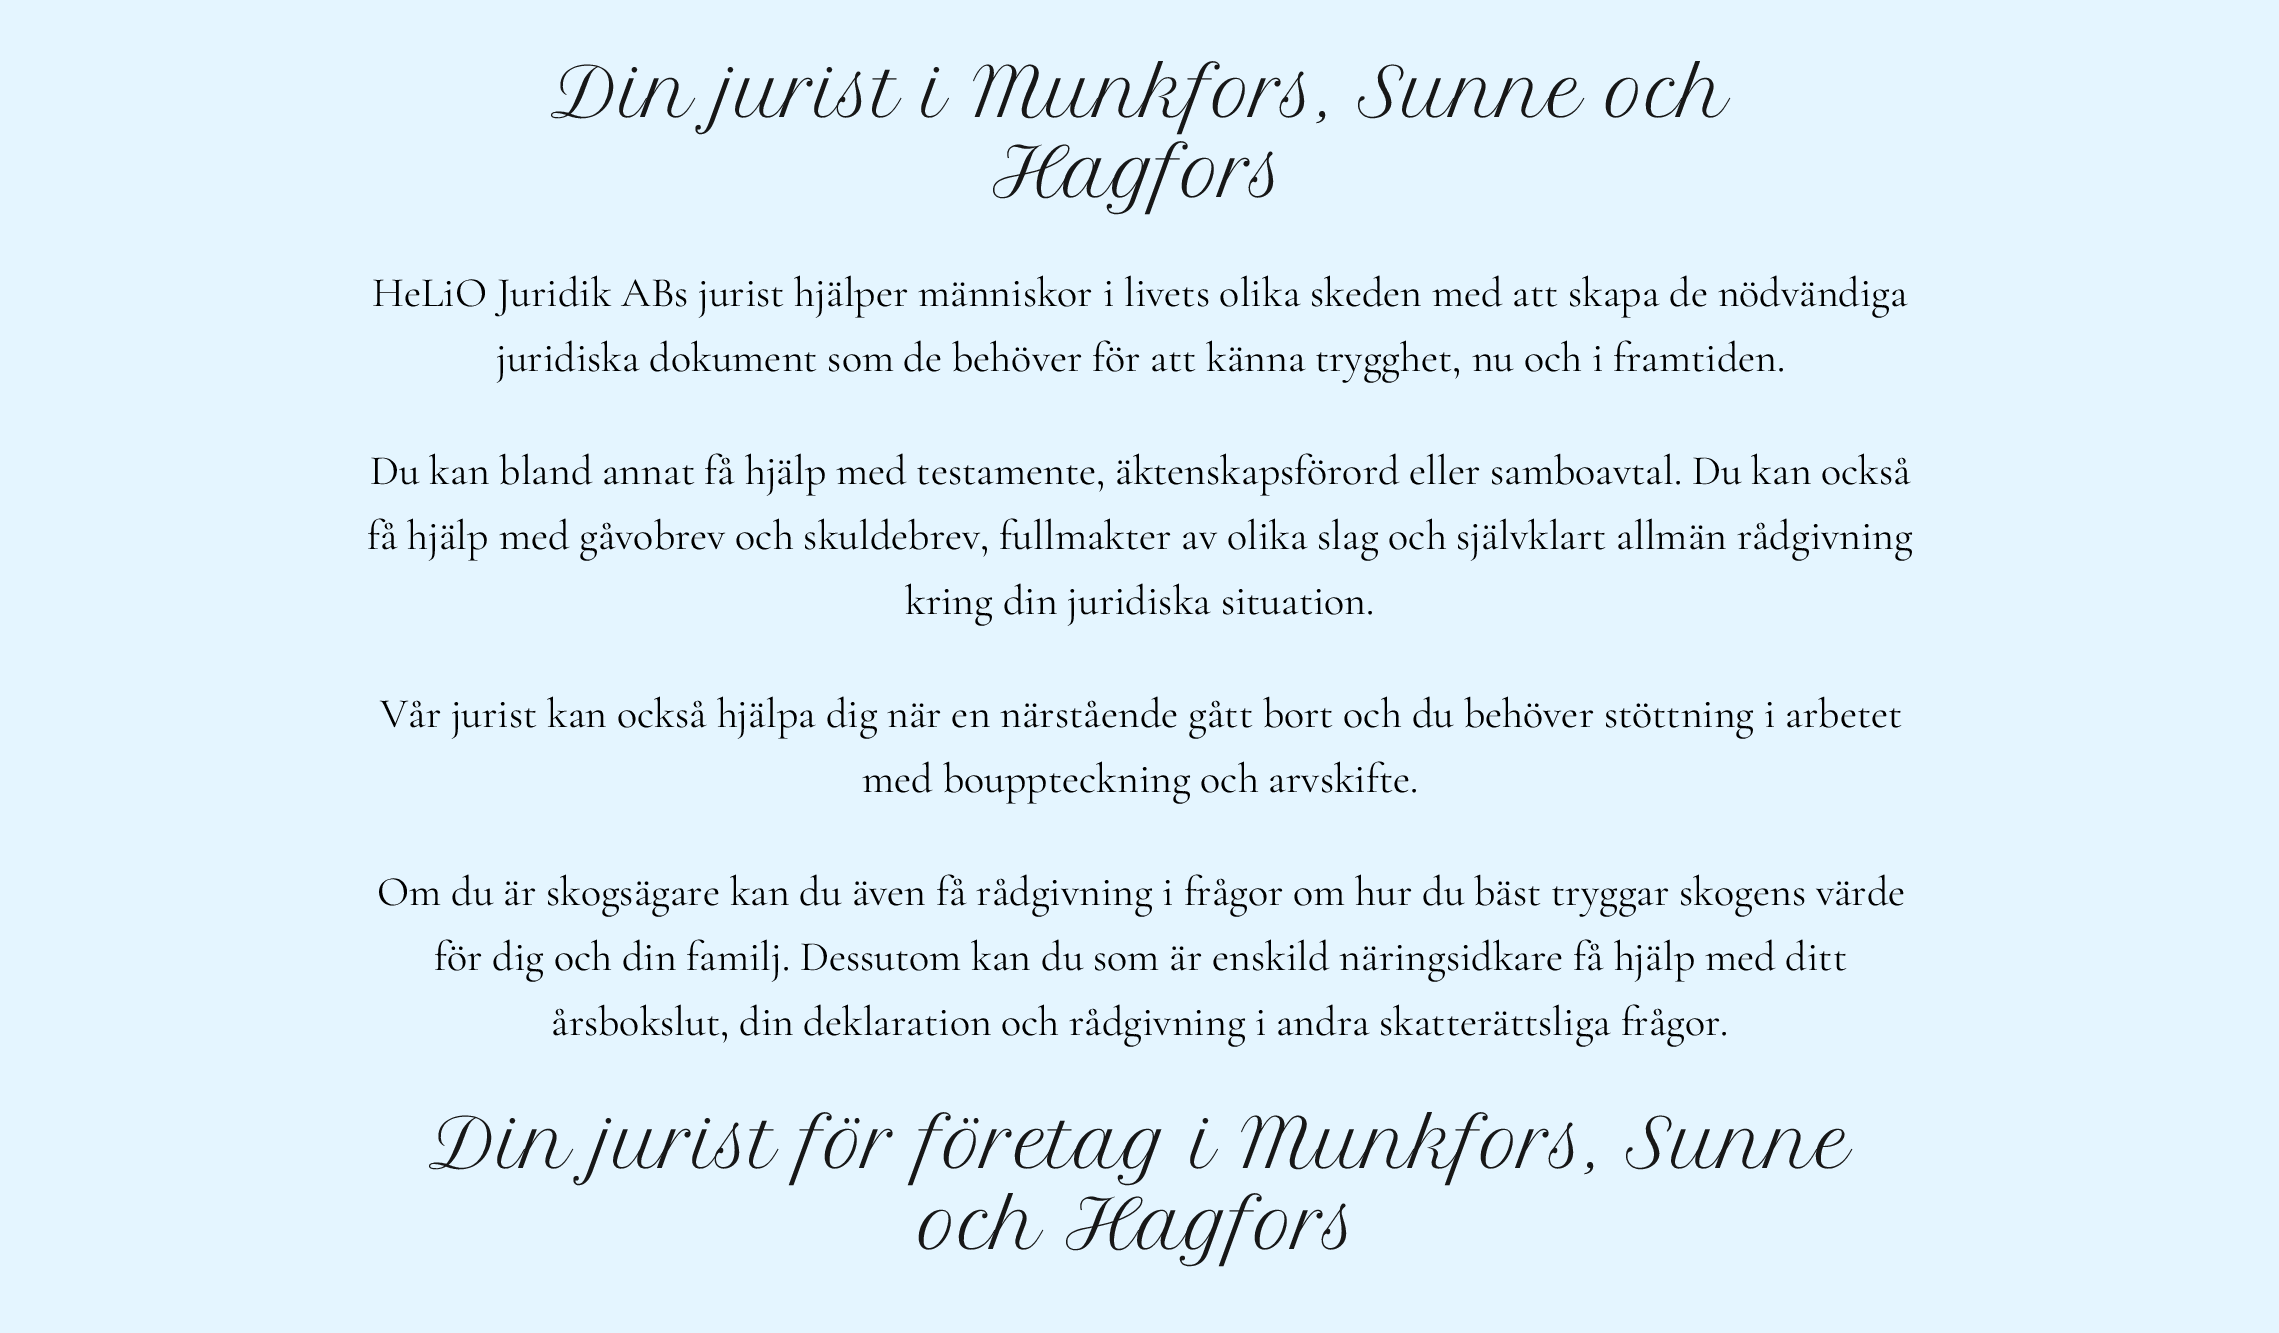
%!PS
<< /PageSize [2279 1333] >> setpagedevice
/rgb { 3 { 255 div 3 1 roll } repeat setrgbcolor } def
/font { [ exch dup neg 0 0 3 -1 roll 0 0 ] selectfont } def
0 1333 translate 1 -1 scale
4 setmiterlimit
228 245 255 rgb
0 0 2279 1333 rectfill
/PetitFormalScript-Regular 66.95 font
23 23 23 rgb
551 117 moveto (Din jurist i Munkfors, Sunne och) show
993 197 moveto (Hagfors) show
/CormorantGaramond-Regular 42 font
0 0 0 rgb
372 306 moveto -0.1 0 32 (HeLiO Juridik ABs jurist hjälper människor i livets olika skeden med att skapa de nödvändiga) widthshow
496 371 moveto (juridiska dokument som de behöver för att känna trygghet, nu och i framtiden.) show
370 484 moveto -0.1 0 32 (Du kan bland annat få hjälp med testamente, äktenskapsförord eller samboavtal. Du kan också) widthshow
367 549 moveto -0.1 0 32 (få hjälp med gåvobrev och skuldebrev, fullmakter av olika slag och självklart allmän rådgivning) widthshow
[
  [(kring din juridiska situation.) 905 614]
  [(Vår jurist kan också hjälpa dig när en närstående gått bort och du behöver stöttning i arbetet) 380 727]
  [(med bouppteckning och arvskifte.) 862 792]
  [(Om du är skogsägare kan du även få rådgivning i frågor om hur du bäst tryggar skogens värde) 377 905]
  [(för dig och din familj. Dessutom kan du som är enskild näringsidkare få hjälp med ditt) 434 970]
] { aload pop moveto show } forall
551 1035 moveto -0.25 0 32 (årsbokslut, din deklaration och rådgivning i andra skatterättsliga frågor.) widthshow
/PetitFormalScript-Regular 66.95 font
23 23 23 rgb
429 1168 moveto -0.1 0 32 (Din jurist för företag i Munkfors, Sunne) widthshow
920 1249 moveto (och Hagfors) show
showpage
